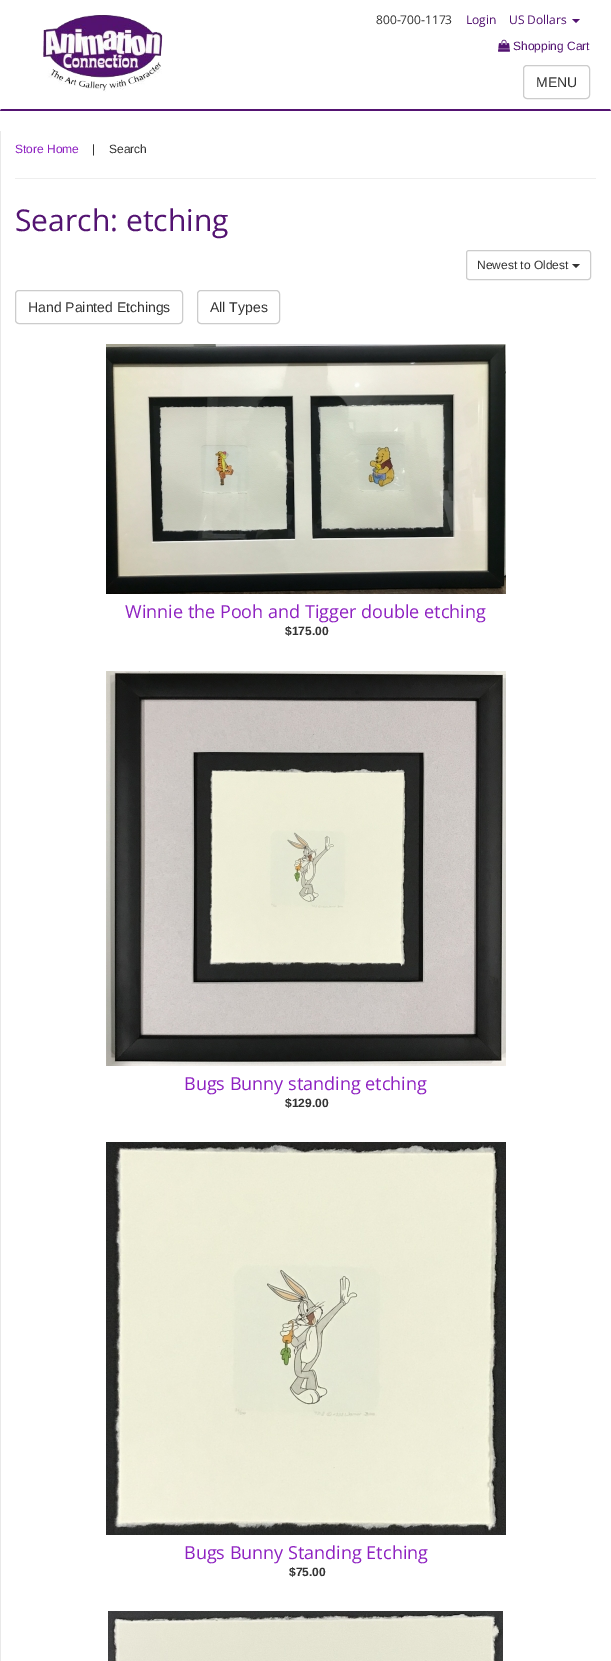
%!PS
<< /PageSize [611 1661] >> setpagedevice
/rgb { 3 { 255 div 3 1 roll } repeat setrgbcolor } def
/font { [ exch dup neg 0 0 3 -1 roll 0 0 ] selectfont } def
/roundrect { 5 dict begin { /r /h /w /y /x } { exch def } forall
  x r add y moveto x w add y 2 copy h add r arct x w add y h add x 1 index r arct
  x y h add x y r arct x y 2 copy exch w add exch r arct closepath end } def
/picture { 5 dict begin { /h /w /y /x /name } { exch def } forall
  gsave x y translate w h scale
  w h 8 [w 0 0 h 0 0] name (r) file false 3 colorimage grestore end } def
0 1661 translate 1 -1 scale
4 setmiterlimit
255 255 255 rgb
0 0 611 1661 rectfill
83 19 113 rgb
611 111 moveto 0 111 lineto 1 109 lineto 610 109 lineto closepath fill
(img/1.rgb) 42 15 121 77 picture
572 19 moveto 580 19 lineto 576 23 lineto closepath fill
(img/2.rgb) 498 39 12 13 picture
204 204 204 rgb
523.5 65.5 66 33 3.5 roundrect stroke
233 233 233 rgb
0 131 1 1530 rectfill
238 238 238 rgb
15 178 581 1 rectfill
204 204 204 rgb
466.5 250.5 124 29 2.5 roundrect stroke
51 51 51 rgb
572 264 moveto 580 264 lineto 576 268 lineto closepath fill
204 204 204 rgb
15.5 290.5 167 33 3.5 roundrect stroke
197.5 290.5 82 33 3.5 roundrect stroke
(img/3.rgb) 106 344 400 250 picture
(img/4.rgb) 106 671 400 395 picture
(img/5.rgb) 106 1142 400 393 picture
(img/6.rgb) 108 1611 395 50 picture
/OpenSans-Regular 12 font
51 51 51 rgb
376 24 moveto (800-700-1173) show
83 19 113 rgb
466 24 moveto (Login) show
509 24 moveto (US Dollars) show
/LiberationSans-Regular 12 font
513 50 moveto (Shopping Cart) show
/LiberationSans-Regular 14 font
51 51 51 rgb
536 87 moveto (MENU) show
/LiberationSans-Regular 12 font
142 33 193 rgb
15 153 moveto (Store Home) show
51 51 51 rgb
92 153 moveto (|) show
109 153 moveto (Search) show
/OpenSans-Regular 30 font
83 19 113 rgb
15 231 moveto (Search: etching) show
/LiberationSans-Regular 12 font
51 51 51 rgb
477 269 moveto (Newest to Oldest) show
/LiberationSans-Regular 14 font
28 312 moveto (Hand Painted Etchings) show
210 312 moveto (All Types) show
/OpenSans-Regular 18 font
142 33 193 rgb
125 618 moveto (Winnie the Pooh and Tigger double etching) show
/LiberationSans-Bold 12 font
51 51 51 rgb
285 635 moveto ($175.00) show
/OpenSans-Regular 18 font
142 33 193 rgb
184 1090 moveto (Bugs Bunny standing etching) show
/LiberationSans-Bold 12 font
51 51 51 rgb
285 1107 moveto ($129.00) show
/OpenSans-Regular 18 font
142 33 193 rgb
184 1559 moveto (Bugs Bunny Standing Etching) show
/LiberationSans-Bold 12 font
51 51 51 rgb
289 1576 moveto ($75.00) show
showpage
